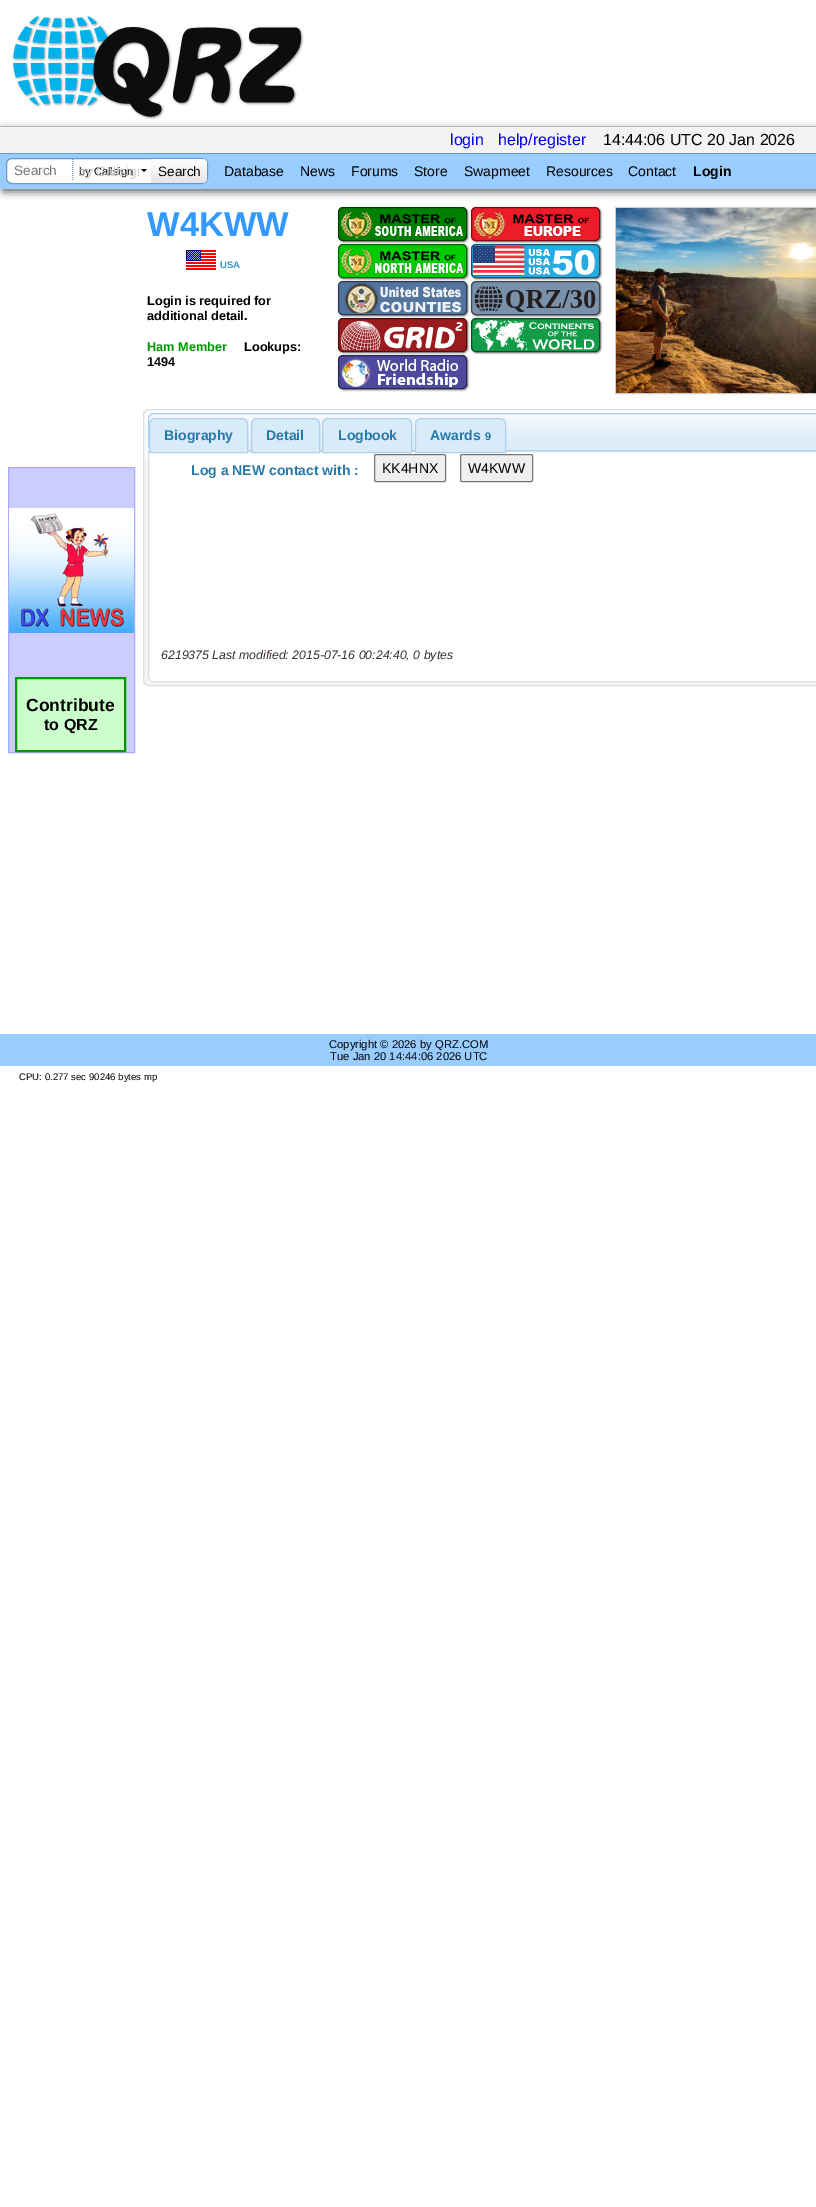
%!PS
<< /PageSize [816 2207] /PageUsesTransparency true >> setpagedevice
/rgb { 3 { 255 div 3 1 roll } repeat setrgbcolor } def
/font { [ exch dup neg 0 0 3 -1 roll 0 0 ] selectfont } def
/alpha { dup .setfillconstantalpha .setstrokeconstantalpha } def
/roundrect { 5 dict begin { /r /h /w /y /x } { exch def } forall
  x r add y moveto x w add y 2 copy h add r arct x w add y h add x 1 index r arct
  x y h add x y r arct x y 2 copy exch w add exch r arct closepath end } def
/shadow { 12 dict begin { /a /b /q /h /w /y /x } { exch def } forall gsave /was 0 def
  9 -2 -9 { dup b mul 4 div /e exch def 1 sub .425 mul 2.718 exch exp 1 add a .99 .min exch div /now exch def
    1 1 now sub 1 was sub div sub alpha /was now def
    w h .min e 2 mul add 0 gt { x e sub y e sub w e 2 mul add h e 2 mul add
      q e add b .6 mul add w h .min 2 div e add .min 0 .max roundrect fill } if } for grestore end } def
/picture { 5 dict begin { /h /w /y /x /name } { exch def } forall
  gsave x y translate w h scale
  w h 8 [w 0 0 h 0 0] name (r) file false 3 colorimage grestore end } def
0 .pushpdf14devicefilter
0 2207 translate 1 -1 scale
4 setmiterlimit
255 255 255 rgb
0 0 816 2207 rectfill
102 102 102 rgb
3 129 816 63 0 4 1 shadow
(img/1.rgb) 12 15 292 105 picture
[
  [0 127 816 26 243 243 243]
  [0 126 816 1 179 179 179]
  [0 154 816 35 153 204 255]
  [0 153 816 1 102 153 204]
] { aload pop rgb rectfill } forall
255 255 255 rgb
6.5 158.5 201 25 5.5 roundrect gsave fill grestore
102 153 204 rgb
stroke
[1 1] 0 setdash
72.5 159 moveto 72.5 181 lineto stroke
0 0 0 rgb
141 169 moveto 147 169 lineto 144 172 lineto closepath fill
gsave 151 159 moveto 201 159 lineto 204.5 159 207 161.5 207 165 curveto 207 177 lineto 207 180.5 204.5 183 201 183 curveto 151 183 lineto closepath clip newpath
<< /ShadingType 2 /ColorSpace /DeviceRGB /Coords [179 159 179 183] /Extend [true true] /Function << /FunctionType 2 /Domain [0 1] /C0 [1 1 1] /C1 [0.898 0.898 0.898] /N 1 >> >> shfill grestore
(img/2.rgb) 186 250 30 20 picture
102 102 102 rgb
339 208 129 34 5 1 1 shadow
0 128 0 rgb
338 207 129 34 5 roundrect fill
0.5 alpha
0 0 0 rgb
[] 0 setdash
338.5 207.5 128 33 4.5 roundrect stroke
1 alpha
(img/3.rgb) 340 211 124 28 picture
102 102 102 rgb
472 208 129 34 5 1 1 shadow
236 29 41 rgb
471 207 129 34 5 roundrect fill
0.5 alpha
0 0 0 rgb
471.5 207.5 128 33 4.5 roundrect stroke
1 alpha
(img/4.rgb) 473 211 116 28 picture
102 102 102 rgb
339 245 129 34 5 1 1 shadow
0 204 0 rgb
338 244 129 34 5 roundrect fill
0.5 alpha
0 0 0 rgb
338.5 244.5 128 33 4.5 roundrect stroke
1 alpha
(img/5.rgb) 340 248 124 28 picture
102 102 102 rgb
472 245 129 34 5 1 1 shadow
37 170 225 rgb
471 244 129 34 5 roundrect fill
0.5 alpha
0 0 0 rgb
471.5 244.5 128 33 4.5 roundrect stroke
1 alpha
(img/6.rgb) 473 246 125 30 picture
102 102 102 rgb
339 282 129 34 5 1 1 shadow
82 116 157 rgb
338 281 129 34 5 roundrect fill
0.5 alpha
0 0 0 rgb
338.5 281.5 128 33 4.5 roundrect stroke
1 alpha
(img/7.rgb) 340 283 125 30 picture
102 102 102 rgb
472 282 129 34 5 1 1 shadow
121 145 170 rgb
471 281 129 34 5 roundrect fill
0.5 alpha
0 0 0 rgb
471.5 281.5 128 33 4.5 roundrect stroke
1 alpha
(img/8.rgb) 474 286 122 26 picture
102 102 102 rgb
339 319 129 34 5 1 1 shadow
153 27 30 rgb
338 318 129 34 5 roundrect fill
0.5 alpha
0 0 0 rgb
338.5 318.5 128 33 4.5 roundrect stroke
1 alpha
(img/9.rgb) 340 320 125 30 picture
102 102 102 rgb
472 319 129 34 5 1 1 shadow
19 155 72 rgb
471 318 129 34 5 roundrect fill
0.5 alpha
0 0 0 rgb
471.5 318.5 128 33 4.5 roundrect stroke
1 alpha
(img/10.rgb) 473 320 125 30 picture
102 102 102 rgb
339 356 129 34 5 1 1 shadow
79 73 157 rgb
338 355 129 34 5 roundrect fill
0.5 alpha
0 0 0 rgb
338.5 355.5 128 33 4.5 roundrect stroke
1 alpha
(img/11.rgb) 340 357 125 30 picture
204 204 204 rgb
615.5 207.5 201 186 rectstroke
(img/12.rgb) 616 208 200 185 picture
242 245 247 rgb
143 409 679 277 6 roundrect fill
(img/13.rgb) 143 410 673 49 picture
221 221 221 rgb
143.5 409.5 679 276 5.5 roundrect stroke
(img/14.rgb) 148 413 668 37 picture
174 208 234 rgb
148.5 413.5 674 37 5.5 roundrect stroke
255 255 255 rgb
148.5 451.5 moveto 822.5 451.5 lineto 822.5 676 lineto 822.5 679 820 681.5 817 681.5 curveto 154 681.5 lineto 151 681.5 148.5 679 148.5 676 curveto closepath gsave fill grestore
221 221 221 rgb
stroke
215 235 249 rgb
155 418.5 moveto 242 418.5 lineto 245 418.5 247.5 421 247.5 424 curveto 247.5 452.5 lineto 149.5 452.5 lineto 149.5 424 lineto 149.5 421 152 418.5 155 418.5 curveto closepath gsave fill grestore
174 208 234 rgb
stroke
215 235 249 rgb
257 418.5 moveto 314 418.5 lineto 317 418.5 319.5 421 319.5 424 curveto 319.5 452.5 lineto 251.5 452.5 lineto 251.5 424 lineto 251.5 421 254 418.5 257 418.5 curveto closepath gsave fill grestore
174 208 234 rgb
stroke
215 235 249 rgb
328 418.5 moveto 406 418.5 lineto 409 418.5 411.5 421 411.5 424 curveto 411.5 452.5 lineto 322.5 452.5 lineto 322.5 424 lineto 322.5 421 325 418.5 328 418.5 curveto closepath gsave fill grestore
174 208 234 rgb
stroke
215 235 249 rgb
421 418.5 moveto 500 418.5 lineto 503 418.5 505.5 421 505.5 424 curveto 505.5 452.5 lineto 415.5 452.5 lineto 415.5 424 lineto 415.5 421 418 418.5 421 418.5 curveto closepath gsave fill grestore
174 208 234 rgb
stroke
239 239 239 rgb
374.5 454.5 71 27 1.5 roundrect gsave fill grestore
118 118 118 rgb
stroke
239 239 239 rgb
460.5 454.5 72 27 1.5 roundrect gsave fill grestore
118 118 118 rgb
stroke
204 204 255 rgb
8.5 467.5 moveto 134.5 467.5 lineto 134.5 752.5 lineto 8.5 752.5 lineto closepath gsave fill grestore
170 170 255 rgb
stroke
(img/15.rgb) 9 508 125 125 picture
204 255 204 rgb
16 678 moveto 125 678 lineto 125 751 lineto 16 751 lineto closepath gsave fill grestore
0 153 0 rgb
2 setlinewidth
stroke
153 204 255 rgb
0 1034 816 32 rectfill
/LiberationSans-Regular 16 font
0 0 238 rgb
450 145 moveto (login) show
498 145 moveto (help/register) show
0 0 0 rgb
603 145 moveto (14:44:06 UTC 20 Jan 2026) show
/LiberationSans-Regular 13.5 font
117 117 117 rgb
14 175 moveto (Search) show
/LiberationSans-Regular 11 font
0 0 0 rgb
79 175 moveto (by Callsign) show
gsave
78 163 61 17 rectclip
/LiberationSans-Regular 13.5 font
199 199 199 rgb
78 176 moveto (by Callsign) show
grestore
/LiberationSans-Regular 13.5 font
158 176 moveto (Search) show
/LiberationSans-Regular 14 font
[
  [(Database) 224 176]
  [(News) 300 176]
  [(Forums) 351 176]
  [(Store) 414 176]
  [(Swapmeet) 464 176]
  [(Resources) 546 176]
  [(Contact) 628 176]
] { aload pop moveto show } forall
/LiberationSans-Bold 14 font
693 176 moveto (Login) show
/LiberationSans-Bold 34.5 font
51 153 255 rgb
147 236 moveto (W4KWW) show
/LiberationSans-Bold 9.6 font
51 153 204 rgb
220 268 moveto (USA) show
/LiberationSans-Bold 12.75 font
0 0 0 rgb
147 305 moveto (Login is required for) show
147 320 moveto (additional detail.) show
0 153 0 rgb
147 351 moveto (Ham Member) show
0 0 0 rgb
244 351 moveto (Lookups:) show
147 366 moveto (1494) show
/LiberationSans-Bold 14 font
39 121 170 rgb
[
  [(Biography) 164 440]
  [(Detail) 266 440]
  [(Logbook) 338 440]
  [(Awards) 430 440]
] { aload pop moveto show } forall
/LiberationSans-Bold 11 font
485 440 moveto (9) show
/LiberationSans-Bold 14 font
191 475 moveto (Log a NEW contact with :) show
/LiberationSans-Regular 14 font
0 0 0 rgb
382 473 moveto (KK4HNX) show
468 473 moveto (W4KWW) show
/LiberationSans-Italic 12.3 font
54 43 54 rgb
161 659 moveto (6219375 Last modified: 2015-07-16 00:24:40, 0 bytes) show
/LiberationSans-Bold 17.5 font
0 0 0 rgb
26 711 moveto (Contribute) show
/LiberationSans-Bold 16 font
44 730 moveto (to QRZ) show
/LiberationSans-Regular 11.25 font
329 1048 moveto (Copyright © 2026 by QRZ.COM) show
330 1060 moveto (Tue Jan 20 14:44:06 2026 UTC) show
/LiberationSans-Regular 9.6 font
19 1080 moveto (CPU: 0.277 sec 90246 bytes mp) show
.poppdf14devicefilter showpage
